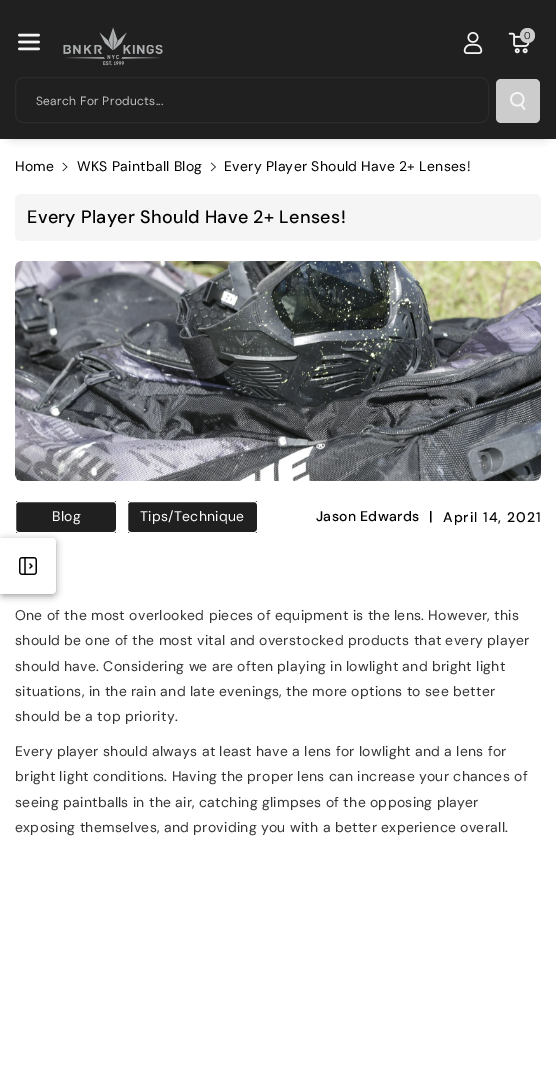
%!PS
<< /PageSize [556 1076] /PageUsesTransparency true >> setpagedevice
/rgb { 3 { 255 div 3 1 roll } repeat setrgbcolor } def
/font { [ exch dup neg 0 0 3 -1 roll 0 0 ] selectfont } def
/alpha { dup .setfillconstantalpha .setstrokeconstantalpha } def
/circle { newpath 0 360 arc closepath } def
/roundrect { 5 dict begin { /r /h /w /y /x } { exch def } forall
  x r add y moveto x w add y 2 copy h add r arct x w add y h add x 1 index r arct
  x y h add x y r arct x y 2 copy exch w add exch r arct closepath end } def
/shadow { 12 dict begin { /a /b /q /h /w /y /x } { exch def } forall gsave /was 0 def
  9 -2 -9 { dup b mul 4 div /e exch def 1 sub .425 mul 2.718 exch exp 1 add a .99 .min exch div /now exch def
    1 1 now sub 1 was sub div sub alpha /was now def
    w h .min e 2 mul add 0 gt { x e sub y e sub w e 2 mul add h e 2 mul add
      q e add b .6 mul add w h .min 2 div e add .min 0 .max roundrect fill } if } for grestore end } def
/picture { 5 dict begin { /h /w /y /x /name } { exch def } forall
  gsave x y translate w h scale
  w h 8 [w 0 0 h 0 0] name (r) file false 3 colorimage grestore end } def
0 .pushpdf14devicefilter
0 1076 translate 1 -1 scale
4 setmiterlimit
255 255 255 rgb
0 0 556 1076 rectfill
18 18 18 rgb
12 18 532 115 0 6 0.6 shadow
32 32 32 rgb
0 0 556 139 rectfill
(img/1.rgb) 18 33 22 18 picture
(img/2.rgb) 63 27 100 39 picture
(img/3.rgb) 463 32 20 22 picture
(img/4.rgb) 508 32 22 22 picture
204 204 204 rgb
527.5 35.5 7.5 circle fill
43 43 43 rgb
15.5 77.5 473 45 8.5 roundrect stroke
204 204 204 rgb
496 79 44 44 5 roundrect fill
(img/5.rgb) 510 92 16 18 picture
(img/6.rgb) 62 162 6 10 picture
(img/7.rgb) 210 162 6 10 picture
245 245 245 rgb
15 194 526 47 6 roundrect fill
(img/8.rgb) 15 261 526 220 picture
gsave
15 501 102 32 4 roundrect clip newpath
32 32 32 rgb
16 501 100 32 rectfill
grestore
255 255 255 rgb
15.5 501.5 101 31 3.5 roundrect stroke
gsave
127 501 131 32 4 roundrect clip newpath
32 32 32 rgb
128 501 129 32 rectfill
grestore
127.5 501.5 130 31 3.5 roundrect stroke
18 18 18 rgb
0 540 56 56 4 3.5 0.4 shadow
255 255 255 rgb
0 538 moveto 52 538 lineto 54 538 56 540 56 542 curveto 56 590 lineto 56 592 54 594 52 594 curveto 0 594 lineto closepath fill
(img/9.rgb) 19 557 18 18 picture
/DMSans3-Regular 10 font
32 32 32 rgb
524 39 moveto 0.3 0 (0) ashow
/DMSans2-Regular 12 font
192 192 192 rgb
36 105 moveto 0.3 0 (Search For Products...) ashow
/DMSans-Regular 14 font
0 0 0 rgb
15 171 moveto 0.3 0 (Home) ashow
77 171 moveto 0.3 0 (WKS Paintball Blog) ashow
224 171 moveto 0.3 0 (Every Player Should Have 2+ Lenses!) ashow
/DMSans-Medium 18 font
27 223 moveto 0.3 0 (Every Player Should Have 2+ Lenses!) ashow
/DMSans-Regular 14 font
255 255 255 rgb
52 521 moveto 0.3 0 (Blog) ashow
140 521 moveto 0.3 0 (Tips/Technique) ashow
/DMSans2-Medium 14 font
0 0 0 rgb
316 521 moveto 0.3 0 (Jason Edwards) ashow
429 521 moveto 0.3 0 (|) ashow
443 522 moveto 1 0 (April 14, 2021) ashow
/DMSans-Regular 14 font
51 51 51 rgb
15 620 moveto 0.3 0 (One of the most overlooked pieces of equipment is the lens. However, this) ashow
15 645 moveto 0.3 0 (should be one of the most vital and overstocked products that every player) ashow
15 671 moveto 0.3 0 (should have. Considering we are often playing in lowlight and bright light) ashow
15 696 moveto 0.3 0 (situations, in the rain and late evenings, the more options to see better) ashow
15 721 moveto 0.3 0 (should be a top priority.) ashow
15 756 moveto 0.3 0 (Every player should always at least have a lens for lowlight and a lens for) ashow
15 781 moveto 0.3 0 (bright light conditions. Having the proper lens can increase your chances of) ashow
15 807 moveto 0.3 0 (seeing paintballs in the air, catching glimpses of the opposing player) ashow
15 832 moveto 0.3 0 (exposing themselves, and providing you with a better experience overall.) ashow
.poppdf14devicefilter showpage
